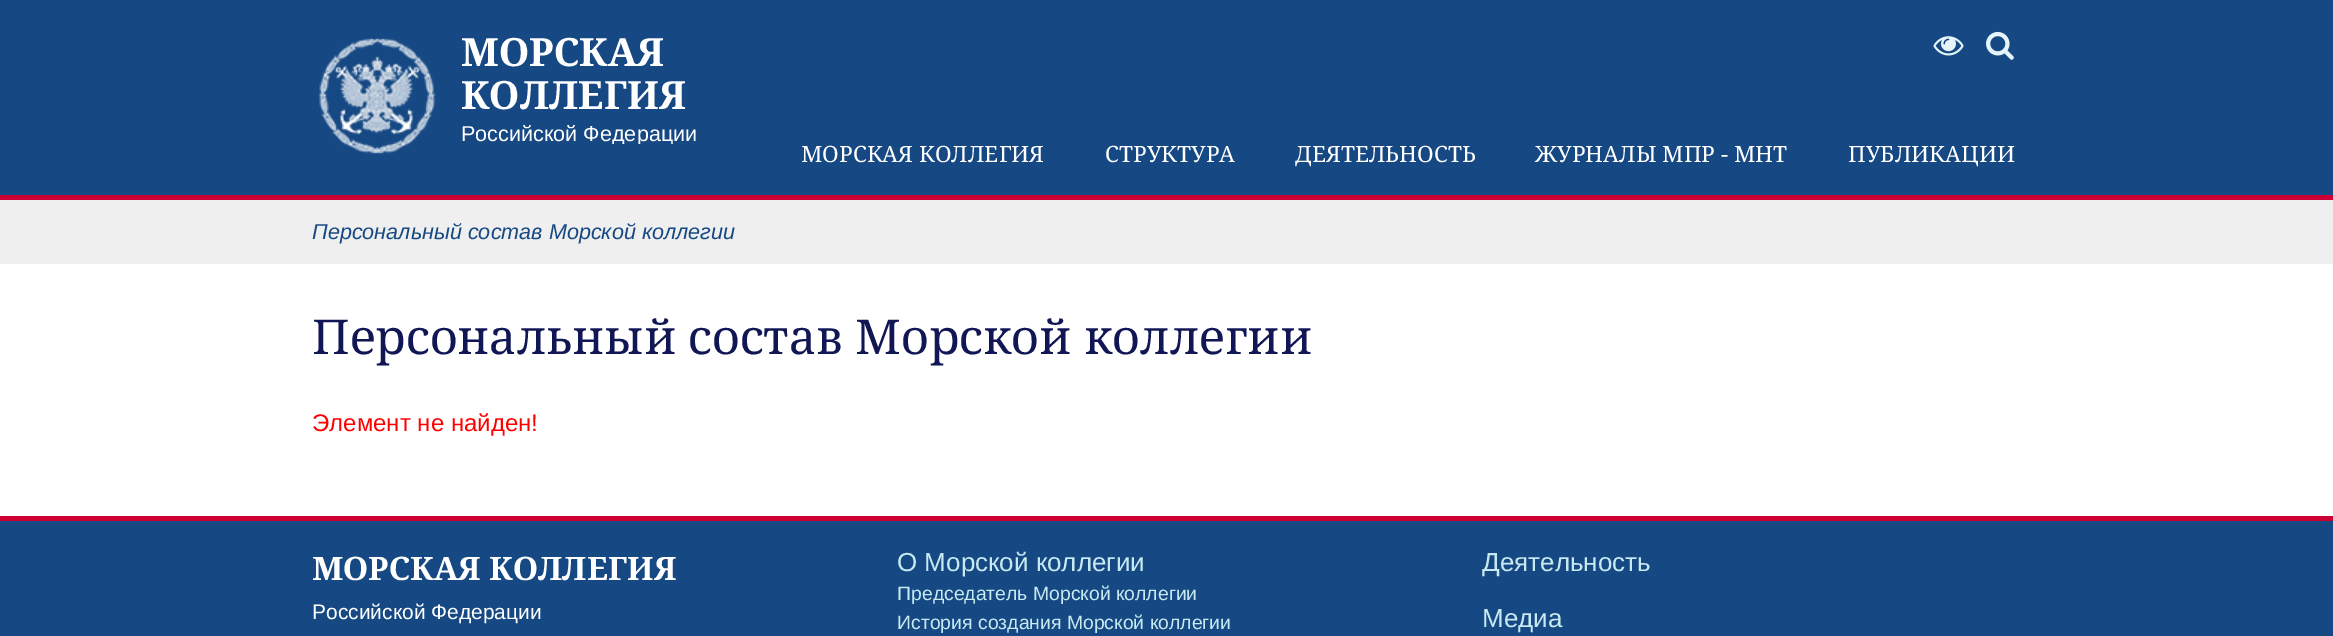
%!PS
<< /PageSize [2333 636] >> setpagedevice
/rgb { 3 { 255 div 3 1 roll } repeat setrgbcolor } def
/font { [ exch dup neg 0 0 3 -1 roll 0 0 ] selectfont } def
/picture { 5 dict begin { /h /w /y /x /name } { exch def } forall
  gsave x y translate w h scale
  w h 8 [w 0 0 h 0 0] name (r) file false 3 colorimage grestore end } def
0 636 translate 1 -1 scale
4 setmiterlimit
255 255 255 rgb
0 0 2333 636 rectfill
22 73 131 rgb
0 0 2333 195 rectfill
204 0 51 rgb
0 195 2333 5 rectfill
(img/1.rgb) 319 38 117 116 picture
(img/2.rgb) 1933 36 31 20 picture
(img/3.rgb) 1986 31 28 29 picture
[
  [0 200 2333 64 239 239 239]
  [0 516 2333 5 204 0 51]
  [0 521 2333 115 22 73 131]
] { aload pop rgb rectfill } forall
/NotoSerif-Bold 39 font
255 255 255 rgb
461 66 moveto (МОРСКАЯ) show
461 109 moveto (КОЛЛЕГИЯ) show
gsave
461 30 267 114 rectclip
/LiberationSans-Regular 21.6 font
461 141 moveto (Российской Федерации) show
grestore
/NotoSerif-Regular 22.5 font
[
  [(МОРСКАЯ КОЛЛЕГИЯ) 801 162]
  [(СТРУКТУРА) 1105 162]
  [(ДЕЯТЕЛЬНОСТЬ) 1295 162]
  [(ЖУРНАЛЫ МПР - МНТ) 1535 162]
  [(ПУБЛИКАЦИИ) 1848 162]
] { aload pop moveto show } forall
/LiberationSans-Italic 21.6 font
22 73 131 rgb
312 239 moveto (Персональный состав Морской коллегии) show
/NotoSerif-Regular 48 font
17 23 85 rgb
312 354 moveto (Персональный состав Морской коллегии) show
/LiberationSans-Regular 24 font
255 0 0 rgb
312 431 moveto (Элемент не найден!) show
/NotoSerif-Bold 32.4 font
255 255 255 rgb
312 580 moveto (МОРСКАЯ КОЛЛЕГИЯ) show
/LiberationSans-Regular 21 font
312 619 moveto (Российской Федерации) show
/LiberationSans-Regular 26 font
198 233 242 rgb
897 571 moveto (О Морской коллегии) show
/LiberationSans-Regular 19.4 font
897 600 moveto (Председатель Морской коллегии) show
897 629 moveto (История создания Морской коллегии) show
/LiberationSans-Regular 26 font
1482 571 moveto (Деятельность) show
1482 627 moveto (Медиа) show
showpage
